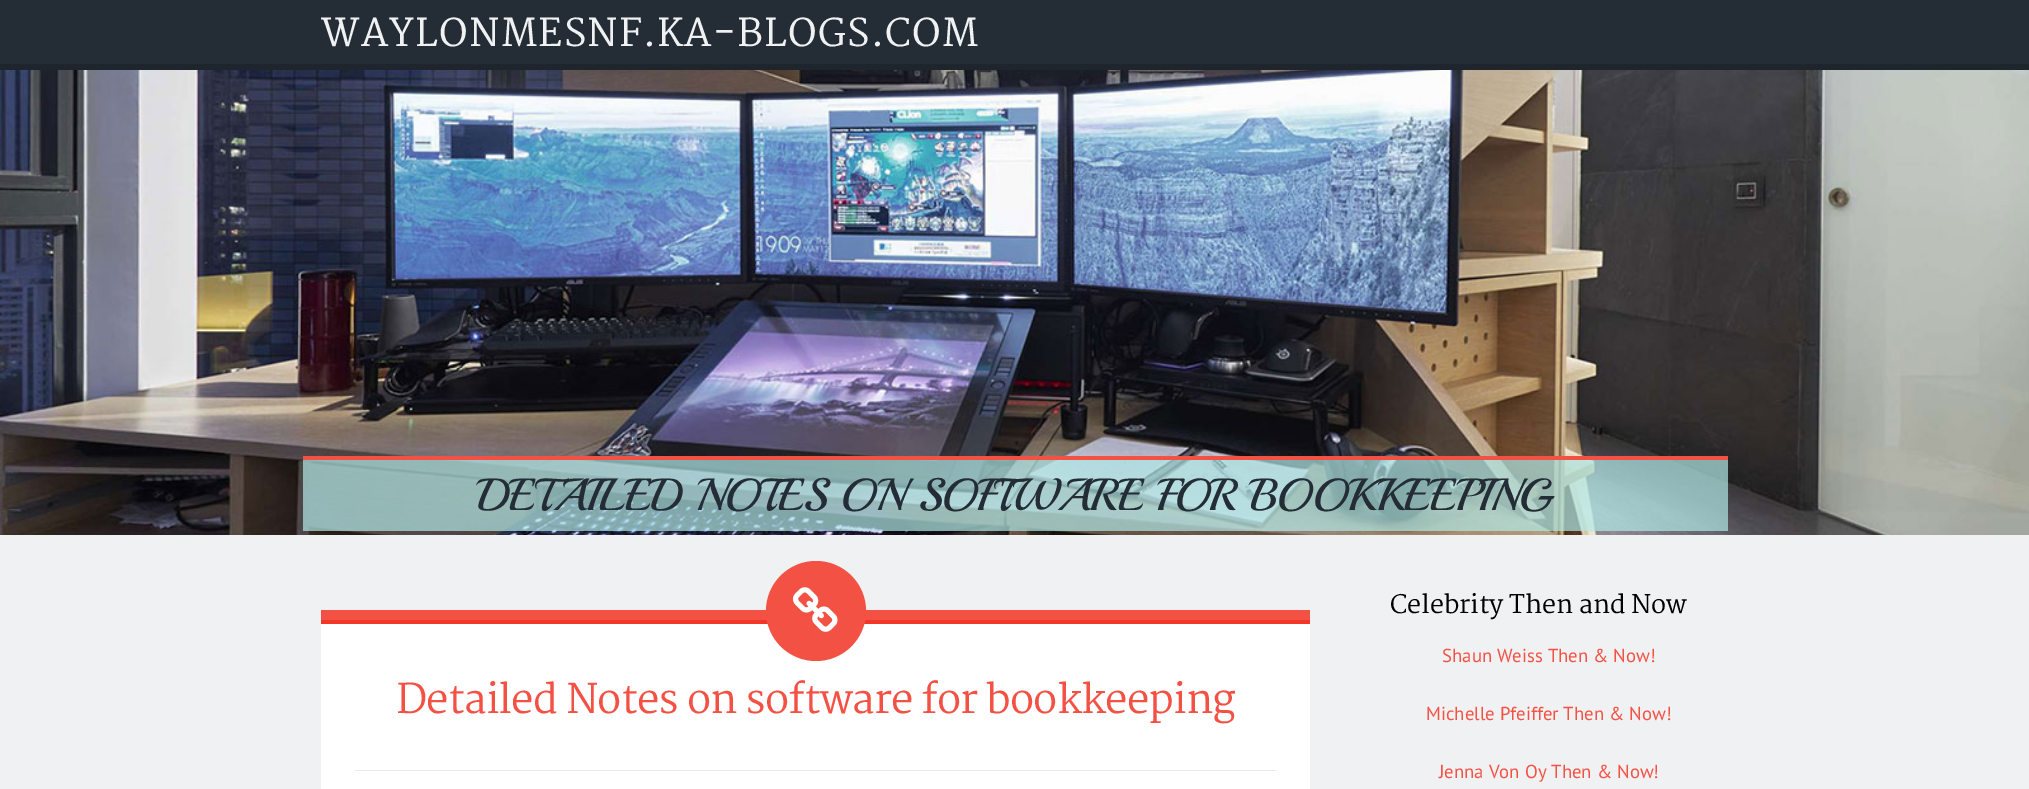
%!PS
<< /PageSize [2029 789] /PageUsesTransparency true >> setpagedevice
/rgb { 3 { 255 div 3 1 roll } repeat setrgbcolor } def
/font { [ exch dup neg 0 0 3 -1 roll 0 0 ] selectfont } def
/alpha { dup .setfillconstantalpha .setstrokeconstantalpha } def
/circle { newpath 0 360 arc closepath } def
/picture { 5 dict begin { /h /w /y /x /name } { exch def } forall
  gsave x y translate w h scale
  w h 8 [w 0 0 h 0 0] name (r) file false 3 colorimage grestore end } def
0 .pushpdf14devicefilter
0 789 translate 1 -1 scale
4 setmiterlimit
240 241 243 rgb
0 0 2029 789 rectfill
36 45 54 rgb
0 0 2029 64 rectfill
30 37 45 rgb
0 64 2029 6 rectfill
(img/1.rgb) 0 70 2029 465 picture
0.7 alpha
[
  [303 460 1425 71 177 232 230]
] { aload pop rgb rectfill } forall
1 alpha
[
  [303 456 1425 4 244 81 69]
  [321 624 989 165 255 255 255]
  [321 610 989 10 244 81 69]
  [321 620 989 4 242 54 40]
] { aload pop rgb rectfill } forall
244 81 69 rgb
816 611 50 circle fill
(img/2.rgb) 792 587 46 45 picture
233 233 233 rgb
355 770 921 1 rectfill
/Martel-SemiBold 37.5 font
240 241 243 rgb
321 46 moveto 1.25 0 (WAYLONMESNF.KA-BLOGS.COM) ashow
/Playball-Regular 45 font
36 45 54 rgb
477 510 moveto (DETAILED NOTES ON SOFTWARE FOR BOOKKEEPING) show
/Martel-Regular 40 font
244 81 69 rgb
396 713 moveto -0.75 0 (Detailed Notes on software for bookkeeping) ashow
/Martel-Regular 25 font
0 0 0 rgb
1390 613 moveto (Celebrity Then and Now) show
/PTSans-Regular 18.75 font
244 81 69 rgb
[
  [(Shaun Weiss Then & Now!) 1442 662]
  [(Michelle Pfeiffer Then & Now!) 1426 720]
  [(Jenna Von Oy Then & Now!) 1439 778]
] { aload pop moveto show } forall
.poppdf14devicefilter showpage
